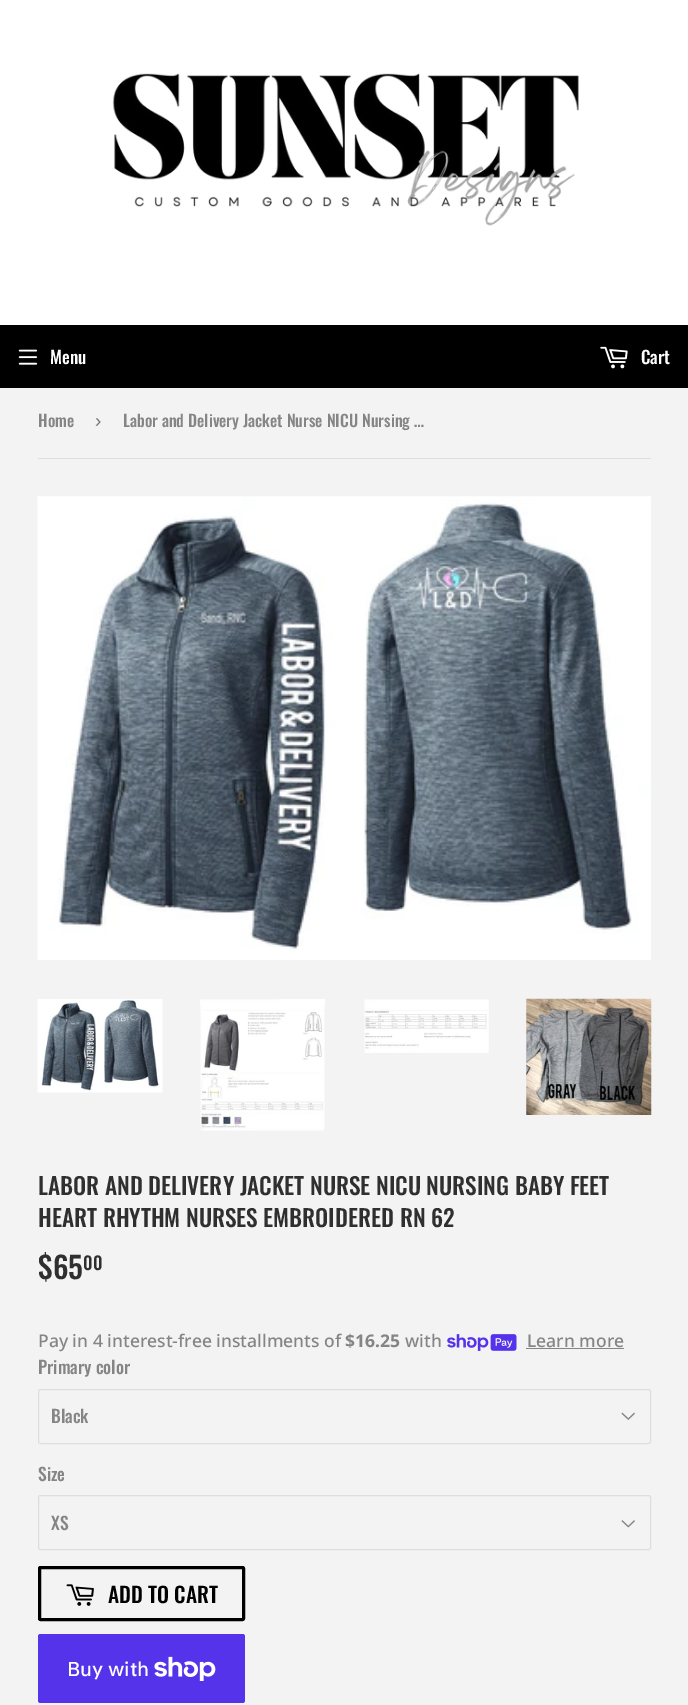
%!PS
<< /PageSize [688 1705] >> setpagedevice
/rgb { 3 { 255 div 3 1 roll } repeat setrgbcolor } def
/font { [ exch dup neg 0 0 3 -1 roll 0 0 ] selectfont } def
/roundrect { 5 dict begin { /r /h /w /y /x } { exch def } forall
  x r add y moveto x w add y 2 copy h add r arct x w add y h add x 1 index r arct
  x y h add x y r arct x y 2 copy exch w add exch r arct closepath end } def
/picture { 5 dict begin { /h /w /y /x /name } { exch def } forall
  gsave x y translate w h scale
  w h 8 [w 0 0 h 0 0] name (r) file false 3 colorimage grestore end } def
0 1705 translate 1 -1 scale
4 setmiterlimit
243 243 243 rgb
0 0 688 1705 rectfill
255 255 255 rgb
0 0 688 325 rectfill
(img/1.rgb) 112 73 467 153 picture
0 0 0 rgb
0 325 688 63 rectfill
(img/2.rgb) 18 349 20 16 picture
(img/3.rgb) 600 346 28 23 picture
222 222 222 rgb
38 458 613 1 rectfill
(img/4.rgb) 37 496 614 464 picture
(img/5.rgb) 37 999 126 94 picture
(img/6.rgb) 200 999 125 132 picture
(img/7.rgb) 364 999 125 54 picture
(img/8.rgb) 526 998 126 117 picture
(img/9.rgb) 447 1334 70 17 picture
133 133 133 rgb
526 1348 98 1 rectfill
(img/10.rgb) 621 1412 14 8 picture
222 222 222 rgb
38.5 1389.5 612 54 2 roundrect stroke
(img/11.rgb) 621 1520 14 8 picture
38.5 1495.5 612 54 2 roundrect stroke
0 0 0 rgb
3 setlinewidth
39.5 1567.5 204 52 1 roundrect stroke
(img/12.rgb) 66 1584 28 22 picture
84 51 235 rgb
38 1634 207 69 2.5 roundrect fill
(img/13.rgb) 154 1656 62 25 picture
/Oswald-Medium 17.5 font
255 255 255 rgb
50 364 moveto (Menu) show
641 364 moveto (Cart) show
/Oswald-Medium 16.25 font
133 133 133 rgb
38 427 moveto (Home) show
/LiberationSans-Regular 19 font
118 118 118 rgb
95 427 moveto (›) show
/Oswald-Medium 16.25 font
133 133 133 rgb
123 427 moveto (Labor and Delivery Jacket Nurse NICU Nursing …) show
/Oswald-Medium 23.3 font
47 47 47 rgb
38 1195 moveto (LABOR AND DELIVERY JACKET NURSE NICU NURSING BABY FEET) show
38 1227 moveto (HEART RHYTHM NURSES EMBROIDERED RN 62) show
/Oswald-Medium 30 font
38 1279 moveto ($65) show
/Oswald-Medium 18 font
83 1270 moveto (00) show
/NotoSans-Medium 17.5 font
133 133 133 rgb
38 1347 moveto (Pay in 4 interest-free installments of) show
/NotoSans-Bold 17.5 font
345 1347 moveto ($16.25) show
/NotoSans-Medium 17.5 font
405 1347 moveto (with) show
527 1347 moveto (Learn more) show
/Oswald-Medium 17.5 font
[
  [(Primary color) 38 1374]
  [(Black) 51 1423]
  [(Size) 38 1481]
  [(XS) 51 1530]
] { aload pop moveto show } forall
/Oswald-Medium 21.25 font
0 0 0 rgb
108 1603 moveto (ADD TO CART) show
/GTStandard-Medium 20 font
255 255 255 rgb
67 1676 moveto (Buy with) show
showpage
